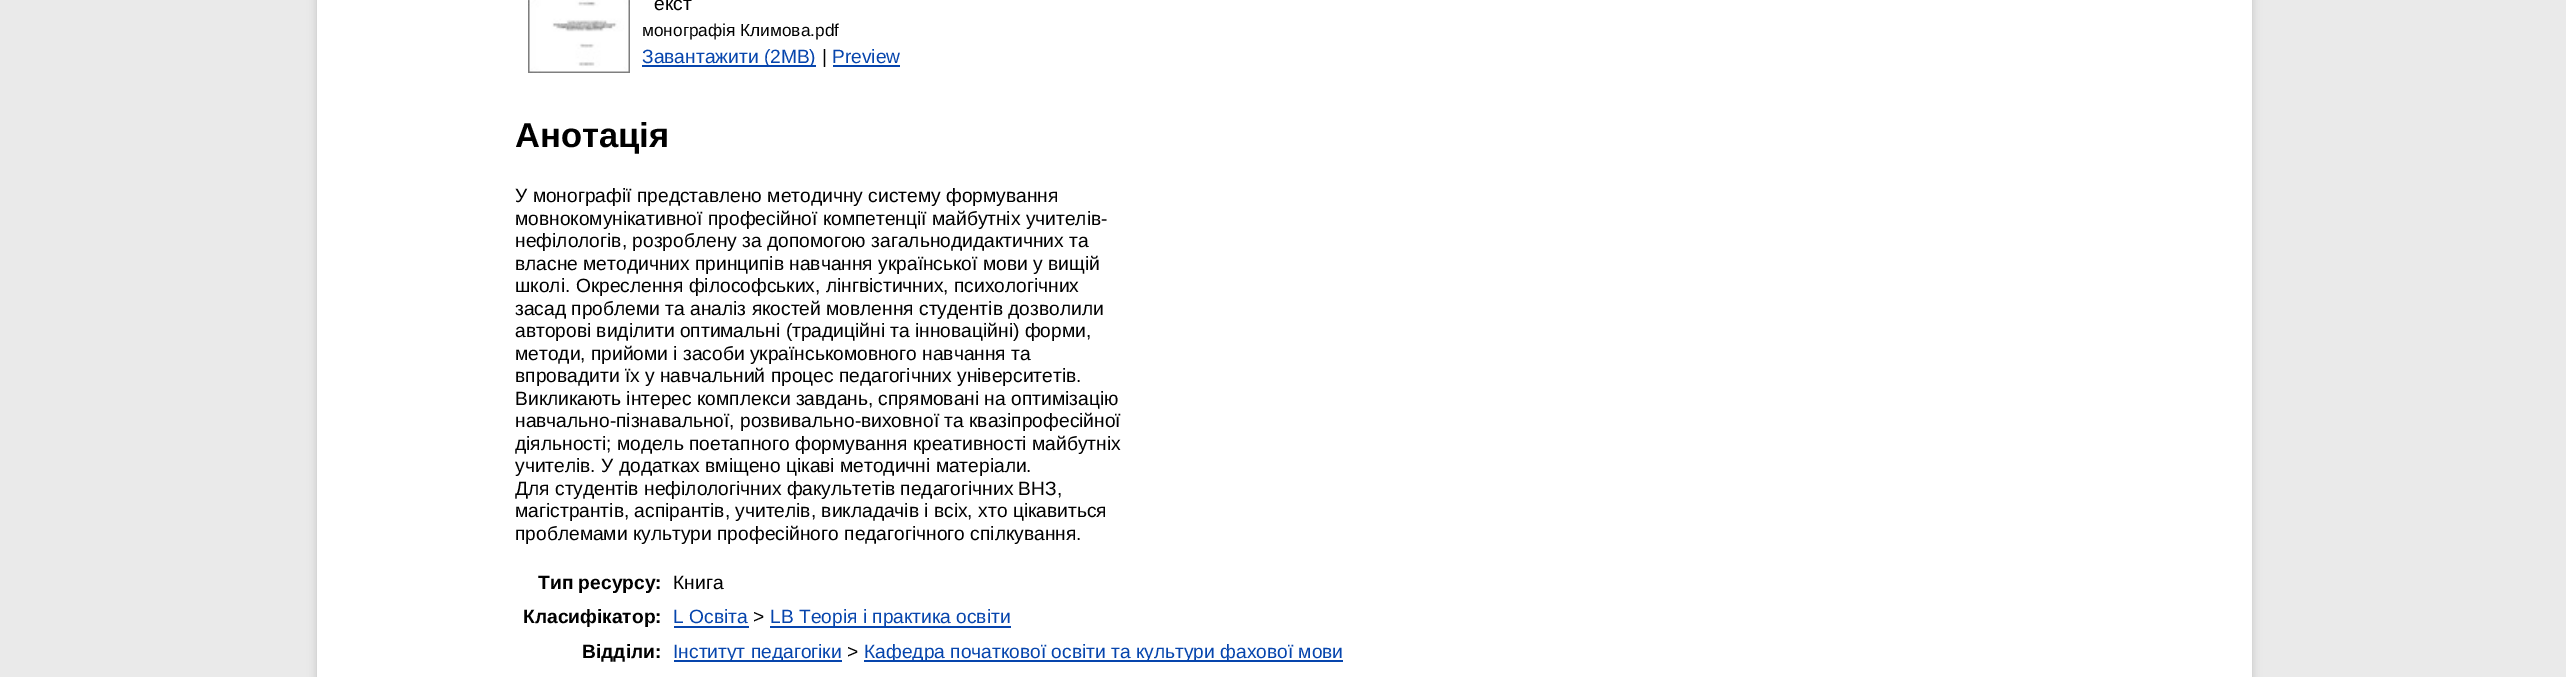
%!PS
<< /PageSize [2566 677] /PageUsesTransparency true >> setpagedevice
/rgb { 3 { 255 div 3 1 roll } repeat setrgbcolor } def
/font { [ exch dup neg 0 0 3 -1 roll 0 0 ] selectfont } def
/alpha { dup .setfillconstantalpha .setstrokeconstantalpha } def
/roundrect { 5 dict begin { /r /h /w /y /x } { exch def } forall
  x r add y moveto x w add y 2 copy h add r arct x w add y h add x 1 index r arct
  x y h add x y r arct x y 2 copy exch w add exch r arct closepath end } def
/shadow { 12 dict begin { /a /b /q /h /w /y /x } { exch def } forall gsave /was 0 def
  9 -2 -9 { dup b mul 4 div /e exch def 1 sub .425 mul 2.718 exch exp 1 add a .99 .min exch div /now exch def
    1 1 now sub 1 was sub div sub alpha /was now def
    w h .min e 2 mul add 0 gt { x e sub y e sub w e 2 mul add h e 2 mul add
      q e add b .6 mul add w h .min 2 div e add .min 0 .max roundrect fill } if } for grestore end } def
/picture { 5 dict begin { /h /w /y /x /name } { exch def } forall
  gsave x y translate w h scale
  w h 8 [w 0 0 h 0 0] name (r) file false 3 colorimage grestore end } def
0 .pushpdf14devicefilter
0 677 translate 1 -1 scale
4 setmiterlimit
234 234 234 rgb
0 0 2566 677 rectfill
100 100 100 rgb
317 -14 1935 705 0 4.5 0.3 shadow
255 255 255 rgb
317 0 1935 677 rectfill
(img/1.rgb) 528 0 102 73 picture
[
  [642 65 174 2 6 69 173]
  [833 65 67 2 6 69 173]
  [674 626 75 2 6 69 173]
  [770 626 241 2 6 69 173]
  [674 660 168 2 6 69 173]
  [864 660 479 2 6 69 173]
] { aload pop rgb rectfill } forall
/LiberationSans-Regular 19.2 font
0 0 0 rgb
654 10 moveto (екст) show
/LiberationSans-Regular 17.25 font
642 36 moveto (монографія Климова.pdf) show
/LiberationSans-Regular 19.2 font
6 69 173 rgb
642 63 moveto (Завантажити \(2MB\)) show
0 0 0 rgb
822 63 moveto (|) show
6 69 173 rgb
832 63 moveto (Preview) show
/LiberationSans-Bold 34.5 font
0 0 0 rgb
515 147 moveto (Анотація) show
/LiberationSans-Regular 19.2 font
[
  [(У монографії представлено методичну систему формування) 515 202]
  [(мовнокомунікативної професійної компетенції майбутніх учителів-) 515 225]
  [(нефілологів, розроблену за допомогою загальнодидактичних та) 515 247]
  [(власне методичних принципів навчання української мови у вищій) 515 270]
  [(школі. Окреслення філософських, лінгвістичних, психологічних) 515 292]
  [(засад проблеми та аналіз якостей мовлення студентів дозволили) 515 315]
  [(авторові виділити оптимальні \(традиційні та інноваційні\) форми,) 515 337]
  [(методи, прийоми і засоби українськомовного навчання та) 515 360]
  [(впровадити їх у навчальний процес педагогічних університетів.) 515 382]
  [(Викликають інтерес комплекси завдань, спрямовані на оптимізацію) 515 405]
  [(навчально-пізнавальної, розвивально-виховної та квазіпрофесійної) 515 427]
  [(діяльності; модель поетапного формування креативності майбутніх) 515 450]
  [(учителів. У додатках вміщено цікаві методичні матеріали.) 515 472]
  [(Для студентів нефілологічних факультетів педагогічних ВНЗ,) 515 495]
  [(магістрантів, аспірантів, учителів, викладачів і всіх, хто цікавиться) 515 517]
  [(проблемами культури професійного педагогічного спілкування.) 515 540]
] { aload pop moveto show } forall
/LiberationSans-Bold 19.2 font
538 589 moveto (Тип ресурсу:) show
/LiberationSans-Regular 19.2 font
673 589 moveto (Книга) show
/LiberationSans-Bold 19.2 font
523 623 moveto (Класифікатор:) show
/LiberationSans-Regular 19.2 font
6 69 173 rgb
673 623 moveto (L Освіта) show
0 0 0 rgb
753 623 moveto (>) show
6 69 173 rgb
770 623 moveto (LB Теорія і практика освіти) show
/LiberationSans-Bold 19.2 font
0 0 0 rgb
582 658 moveto (Відділи:) show
/LiberationSans-Regular 19.2 font
6 69 173 rgb
673 658 moveto (Інститут педагогіки) show
0 0 0 rgb
847 658 moveto (>) show
6 69 173 rgb
864 658 moveto (Кафедра початкової освіти та культури фахової мови) show
.poppdf14devicefilter showpage
